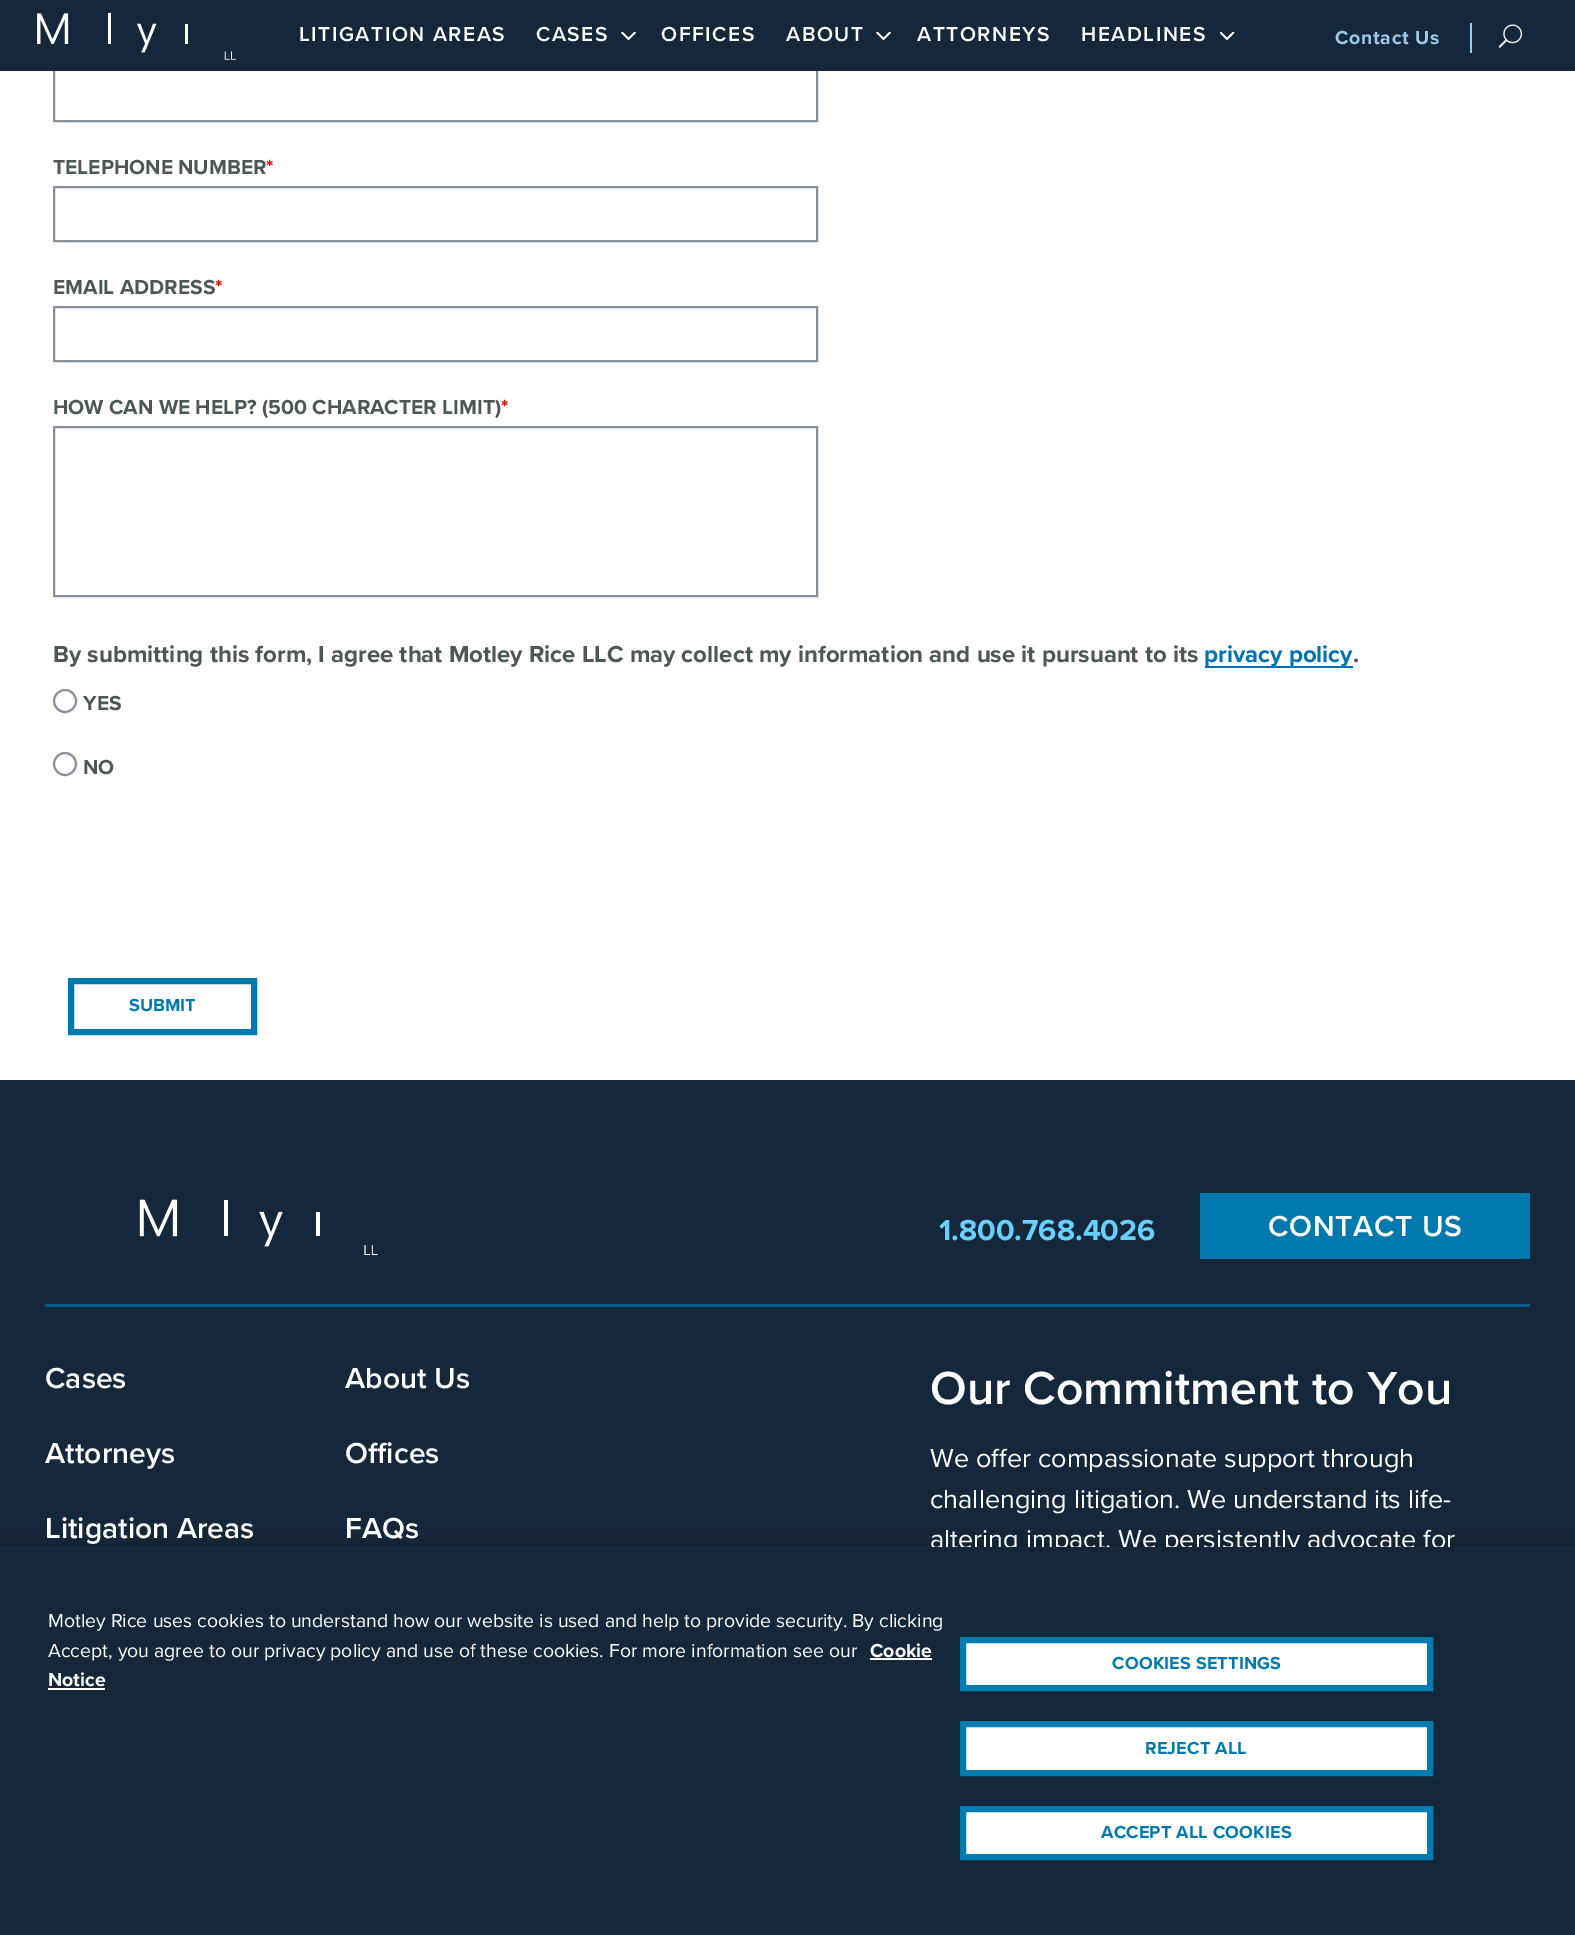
%!PS
<< /PageSize [1575 1935] /PageUsesTransparency true >> setpagedevice
/rgb { 3 { 255 div 3 1 roll } repeat setrgbcolor } def
/font { [ exch dup neg 0 0 3 -1 roll 0 0 ] selectfont } def
/alpha { dup .setfillconstantalpha .setstrokeconstantalpha } def
/circle { newpath 0 360 arc closepath } def
/roundrect { 5 dict begin { /r /h /w /y /x } { exch def } forall
  x r add y moveto x w add y 2 copy h add r arct x w add y h add x 1 index r arct
  x y h add x y r arct x y 2 copy exch w add exch r arct closepath end } def
/shadow { 12 dict begin { /a /b /q /h /w /y /x } { exch def } forall gsave /was 0 def
  9 -2 -9 { dup b mul 4 div /e exch def 1 sub .425 mul 2.718 exch exp 1 add a .99 .min exch div /now exch def
    1 1 now sub 1 was sub div sub alpha /was now def
    w h .min e 2 mul add 0 gt { x e sub y e sub w e 2 mul add h e 2 mul add
      q e add b .6 mul add w h .min 2 div e add .min 0 .max roundrect fill } if } for grestore end } def
/picture { 5 dict begin { /h /w /y /x /name } { exch def } forall
  gsave x y translate w h scale
  w h 8 [w 0 0 h 0 0] name (r) file false 3 colorimage grestore end } def
0 .pushpdf14devicefilter
0 1935 translate 1 -1 scale
4 setmiterlimit
255 255 255 rgb
0 0 1575 1935 rectfill
135 143 155 rgb
2 setlinewidth
54 67 763 54 rectstroke
21 39 59 rgb
0 0 1575 71 rectfill
(img/1.rgb) 37 13 199 47 picture
(img/2.rgb) 621 32 15 9 picture
(img/2.rgb) 876 32 15 9 picture
(img/3.rgb) 1220 32 15 9 picture
156 203 233 rgb
1470 23 2 30 rectfill
(img/4.rgb) 1498 24 25 24 picture
135 143 155 rgb
54 187 763 54 rectstroke
54 307 763 54 rectstroke
54 427 763 169 rectstroke
0 113 179 rgb
1205 666 148 2 rectfill
134 143 154 rgb
65 701 11 circle stroke
65 764 11 circle stroke
0 121 174 rgb
6 setlinewidth
71 981 183 51 rectstroke
21 39 59 rgb
0 1080 1575 467 rectfill
(img/5.rgb) 139 1199 239 57 picture
0 121 174 rgb
1200 1193 330 66 rectfill
0 93 140 rgb
45 1304 1485 3 rectfill
0 0 0 rgb
0 1547 1575 388 0 13.5 0.2 shadow
/ProximaNova-SemiBold 21 font
255 255 255 rgb
299 41 moveto 1.5 0 (LITIGATION AREAS) ashow
536 41 moveto 1.5 0 (CASES) ashow
661 41 moveto 1.5 0 (OFFICES) ashow
786 41 moveto 1.5 0 (ABOUT) ashow
917 41 moveto 1.5 0 (ATTORNEYS) ashow
1081 41 moveto 1.5 0 (HEADLINES) ashow
/ProximaNova-Bold 19.5 font
156 203 233 rgb
1335 44 moveto 0.75 0 (Contact Us) ashow
/ProximaNova-Bold 21 font
78 87 88 rgb
53 174 moveto (TELEPHONE NUMBER) show
255 0 0 rgb
266 174 moveto (*) show
78 87 88 rgb
53 294 moveto (EMAIL ADDRESS) show
255 0 0 rgb
215 294 moveto (*) show
78 87 88 rgb
53 414 moveto (HOW CAN WE HELP? \(500 CHARACTER LIMIT\)) show
255 0 0 rgb
501 414 moveto (*) show
/ProximaNova-Bold 24 font
78 87 88 rgb
53 662 moveto (By submitting this form, I agree that Motley Rice LLC may collect my information and use it pursuant to its) show
0 113 179 rgb
1204 662 moveto (privacy policy) show
78 87 88 rgb
1353 662 moveto (.) show
/ProximaNova-Bold 21 font
83 710 moveto (YES) show
83 774 moveto (NO) show
/ProximaNova-Bold 18 font
0 121 174 rgb
129 1011 moveto (SUBMIT) show
/ProximaNova-Bold 30 font
102 209 255 rgb
939 1240 moveto (1.800.768.4026) show
/ProximaNova-SemiBold 30 font
255 255 255 rgb
1268 1236 moveto 0.75 0 (CONTACT US) ashow
[
  [(Cases) 45 1388]
  [(About Us) 345 1388]
  [(Attorneys) 45 1463]
  [(Offices) 345 1463]
  [(Litigation Areas) 45 1538]
  [(FAQs) 345 1538]
] { aload pop moveto show } forall
/ProximaNova-SemiBold 48 font
930 1404 moveto (Our Commitment to You) show
/ProximaNova-Regular 27 font
[
  [(We offer compassionate support through) 930 1467]
  [(challenging litigation. We understand its life-) 930 1508]
  [(altering impact. We persistently advocate for) 930 1548]
] { aload pop moveto show } forall
21 39 59 rgb
0 1547 1575 388 rectfill
/ProximaNova-Regular 19.5 font
255 255 255 rgb
48 1627 moveto (Motley Rice uses cookies to understand how our website is used and help to provide security. By clicking) show
48 1657 moveto (Accept, you agree to our privacy policy and use of these cookies. For more information see our) show
/ProximaNova-Bold 19.5 font
870 1657 moveto (Cookie) show
870 1658 62 2 rectfill
48 1686 moveto (Notice) show
48 1688 57 2 rectfill
963 1640 moveto 1430 1640 lineto 1430 1688 lineto 963 1688 lineto closepath gsave fill grestore
0 124 178 rgb
stroke
/ProximaNova-Bold 18 font
0 121 174 rgb
1112 1669 moveto 0.2 0 (COOKIES SETTINGS) ashow
255 255 255 rgb
963 1724 moveto 1430 1724 lineto 1430 1773 lineto 963 1773 lineto closepath gsave fill grestore
0 124 178 rgb
stroke
0 121 174 rgb
1145 1754 moveto 0.2 0 (REJECT ALL) ashow
255 255 255 rgb
963 1809 moveto 1430 1809 lineto 1430 1857 lineto 963 1857 lineto closepath gsave fill grestore
0 124 178 rgb
stroke
0 121 174 rgb
1101 1838 moveto 0.2 0 (ACCEPT ALL COOKIES) ashow
.poppdf14devicefilter showpage
